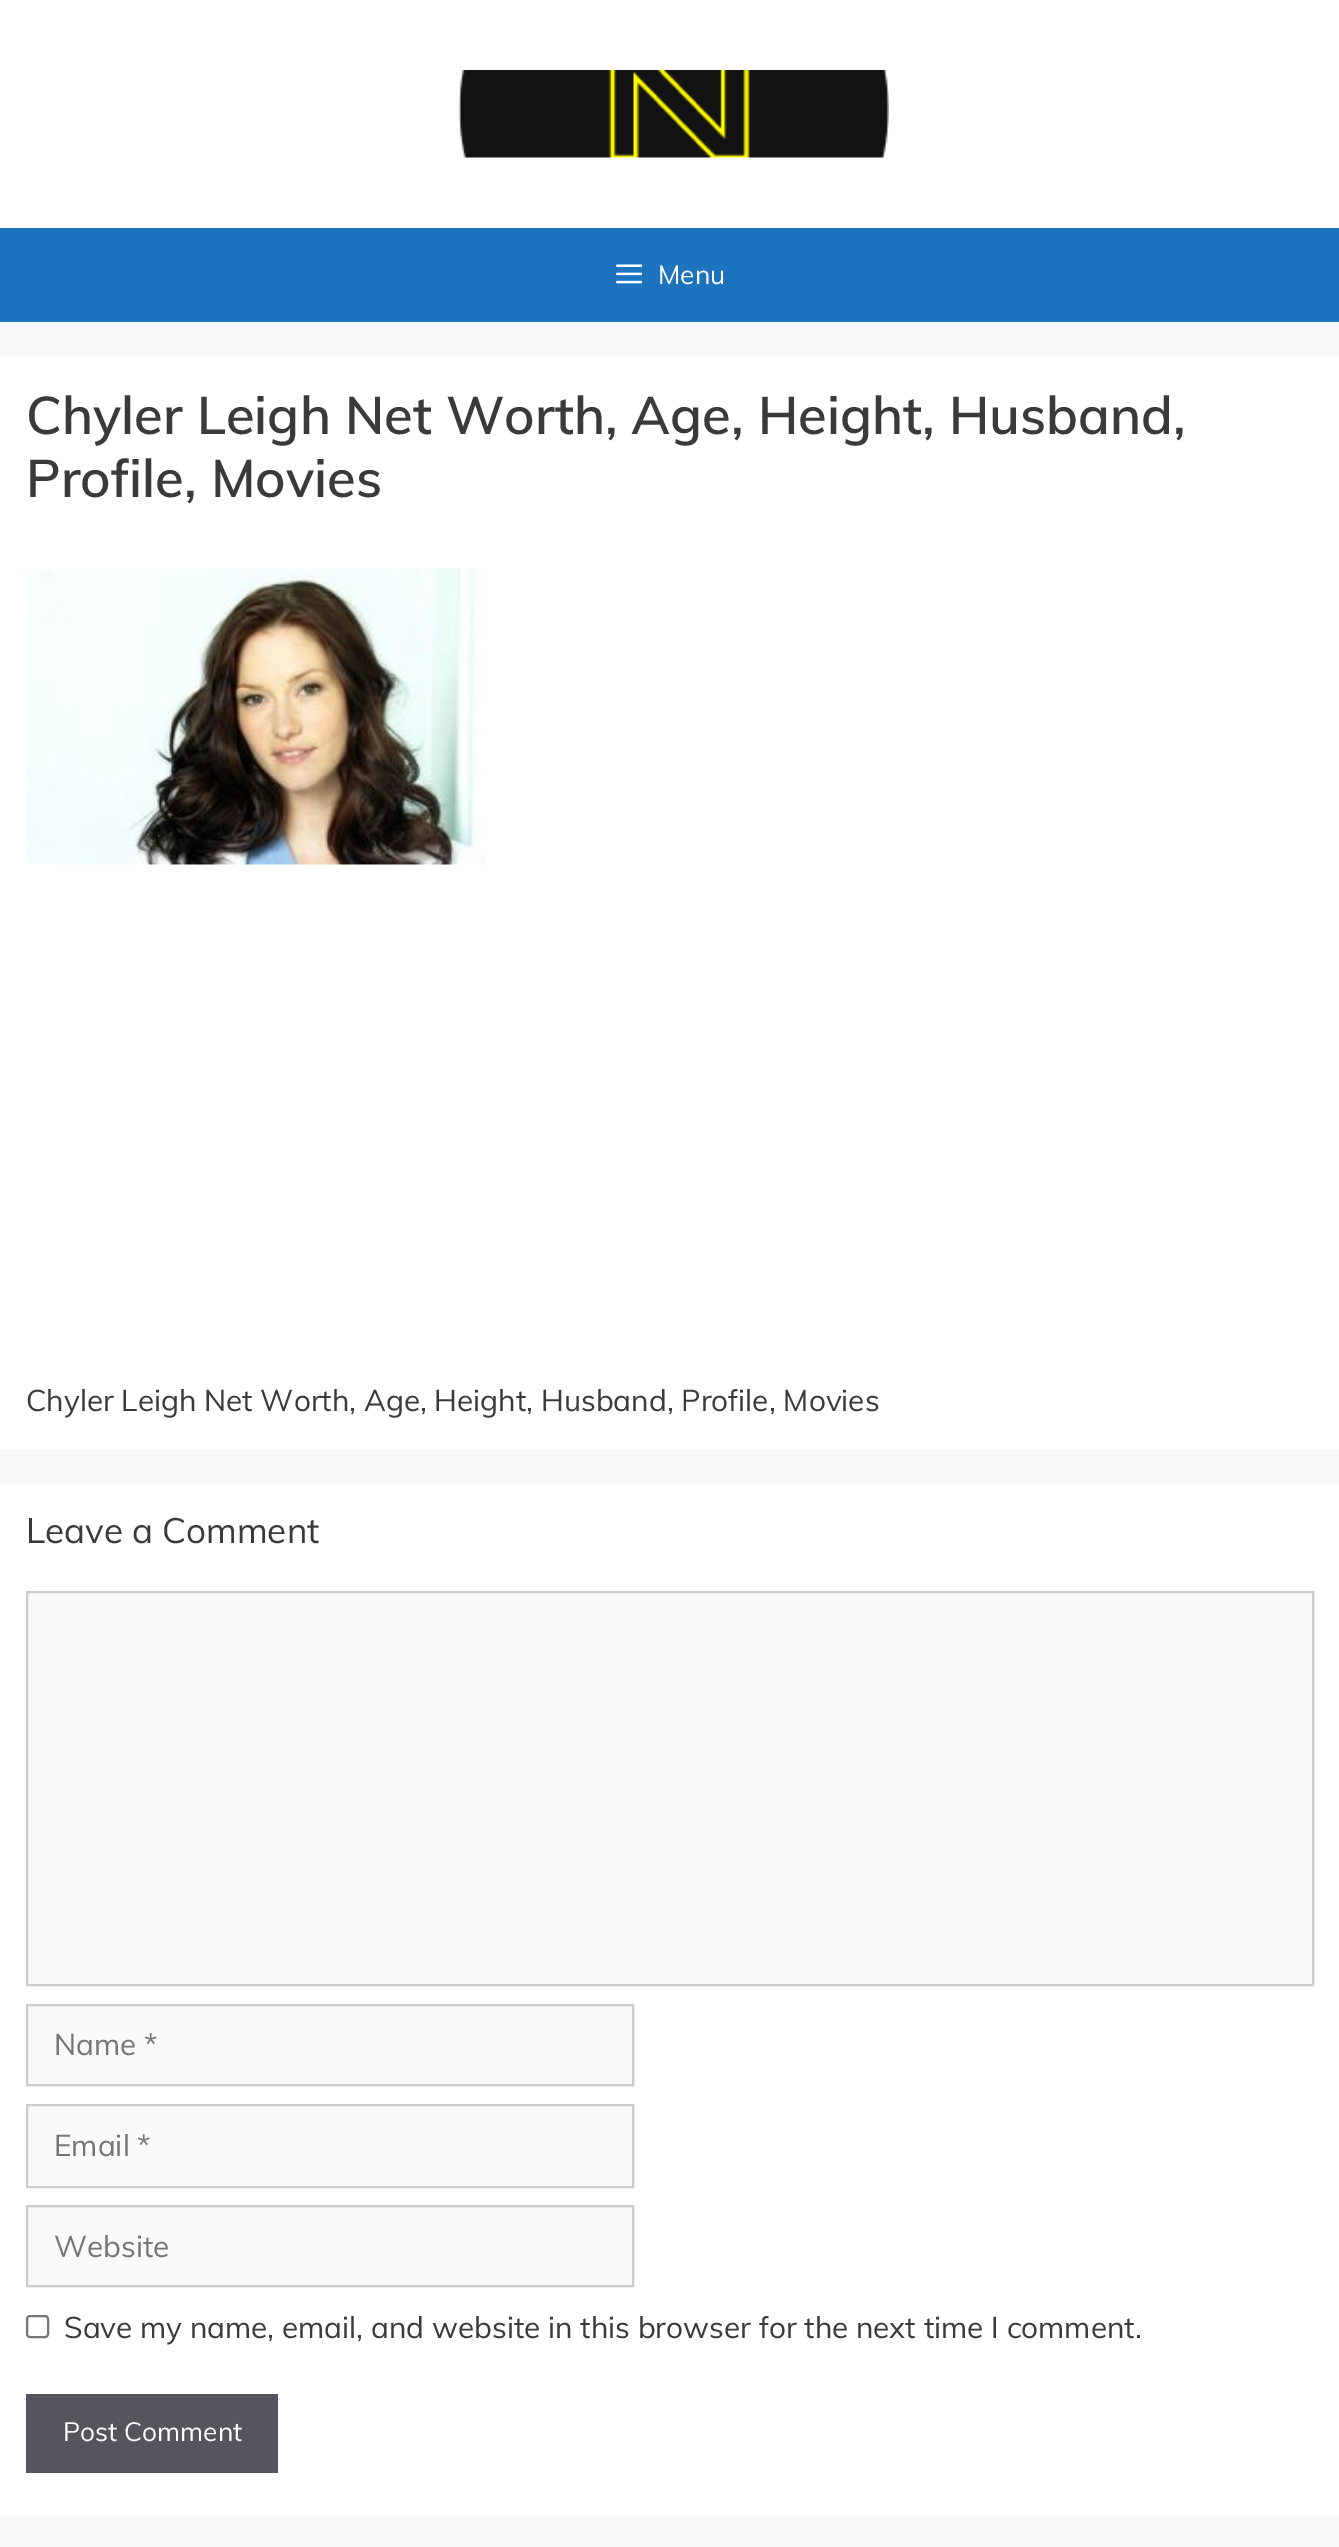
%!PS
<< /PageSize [1339 2547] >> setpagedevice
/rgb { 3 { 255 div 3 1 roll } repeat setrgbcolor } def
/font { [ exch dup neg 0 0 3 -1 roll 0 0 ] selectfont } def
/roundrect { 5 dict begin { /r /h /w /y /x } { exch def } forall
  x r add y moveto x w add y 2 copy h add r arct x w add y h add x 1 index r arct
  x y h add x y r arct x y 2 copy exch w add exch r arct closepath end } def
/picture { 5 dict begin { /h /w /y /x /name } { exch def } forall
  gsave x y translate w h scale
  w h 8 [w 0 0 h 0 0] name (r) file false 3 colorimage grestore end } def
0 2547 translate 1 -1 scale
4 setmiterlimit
247 248 249 rgb
0 0 1339 2547 rectfill
255 255 255 rgb
0 0 1339 228 rectfill
(img/1.rgb) 458 70 431 88 picture
30 115 190 rgb
0 228 1339 94 rectfill
(img/2.rgb) 616 264 26 20 picture
255 255 255 rgb
0 357 1339 1092 rectfill
(img/3.rgb) 26 568 460 297 picture
0 1484 1339 1033 rectfill
250 250 250 rgb
27 1592 moveto 1313 1592 lineto 1313 1985 lineto 27 1985 lineto closepath gsave fill grestore
204 204 204 rgb
2 setlinewidth
stroke
250 250 250 rgb
27 2005 moveto 633 2005 lineto 633 2085 lineto 27 2085 lineto closepath gsave fill grestore
204 204 204 rgb
stroke
250 250 250 rgb
27 2105 moveto 633 2105 lineto 633 2187 lineto 27 2187 lineto closepath gsave fill grestore
204 204 204 rgb
stroke
250 250 250 rgb
27 2206 moveto 633 2206 lineto 633 2286 lineto 27 2286 lineto closepath gsave fill grestore
204 204 204 rgb
stroke
118 118 118 rgb
27 2316 21 21 3 roundrect stroke
85 85 94 rgb
26 2394 252 79 rectfill
/Muli-Regular 26.25 font
255 255 255 rgb
658 284 moveto (Menu) show
/Muli-SemiBold 52.5 font
58 58 58 rgb
26 434 moveto (Chyler Leigh Net Worth, Age, Height, Husband,) show
26 497 moveto (Profile, Movies) show
/Muli-Regular 29.75 font
26 1411 moveto (Chyler Leigh Net Worth, Age, Height, Husband, Profile, Movies) show
/Muli-Regular 35 font
26 1543 moveto (Leave a Comment) show
/Muli-Regular 29.75 font
117 117 117 rgb
[
  [(Name *) 54 2055]
  [(Email *) 54 2156]
  [(Website) 54 2257]
] { aload pop moveto show } forall
58 58 58 rgb
64 2338 moveto (Save my name, email, and website in this browser for the next time I comment.) show
/Muli-Regular 26.25 font
255 255 255 rgb
63 2441 moveto (Post Comment) show
showpage
